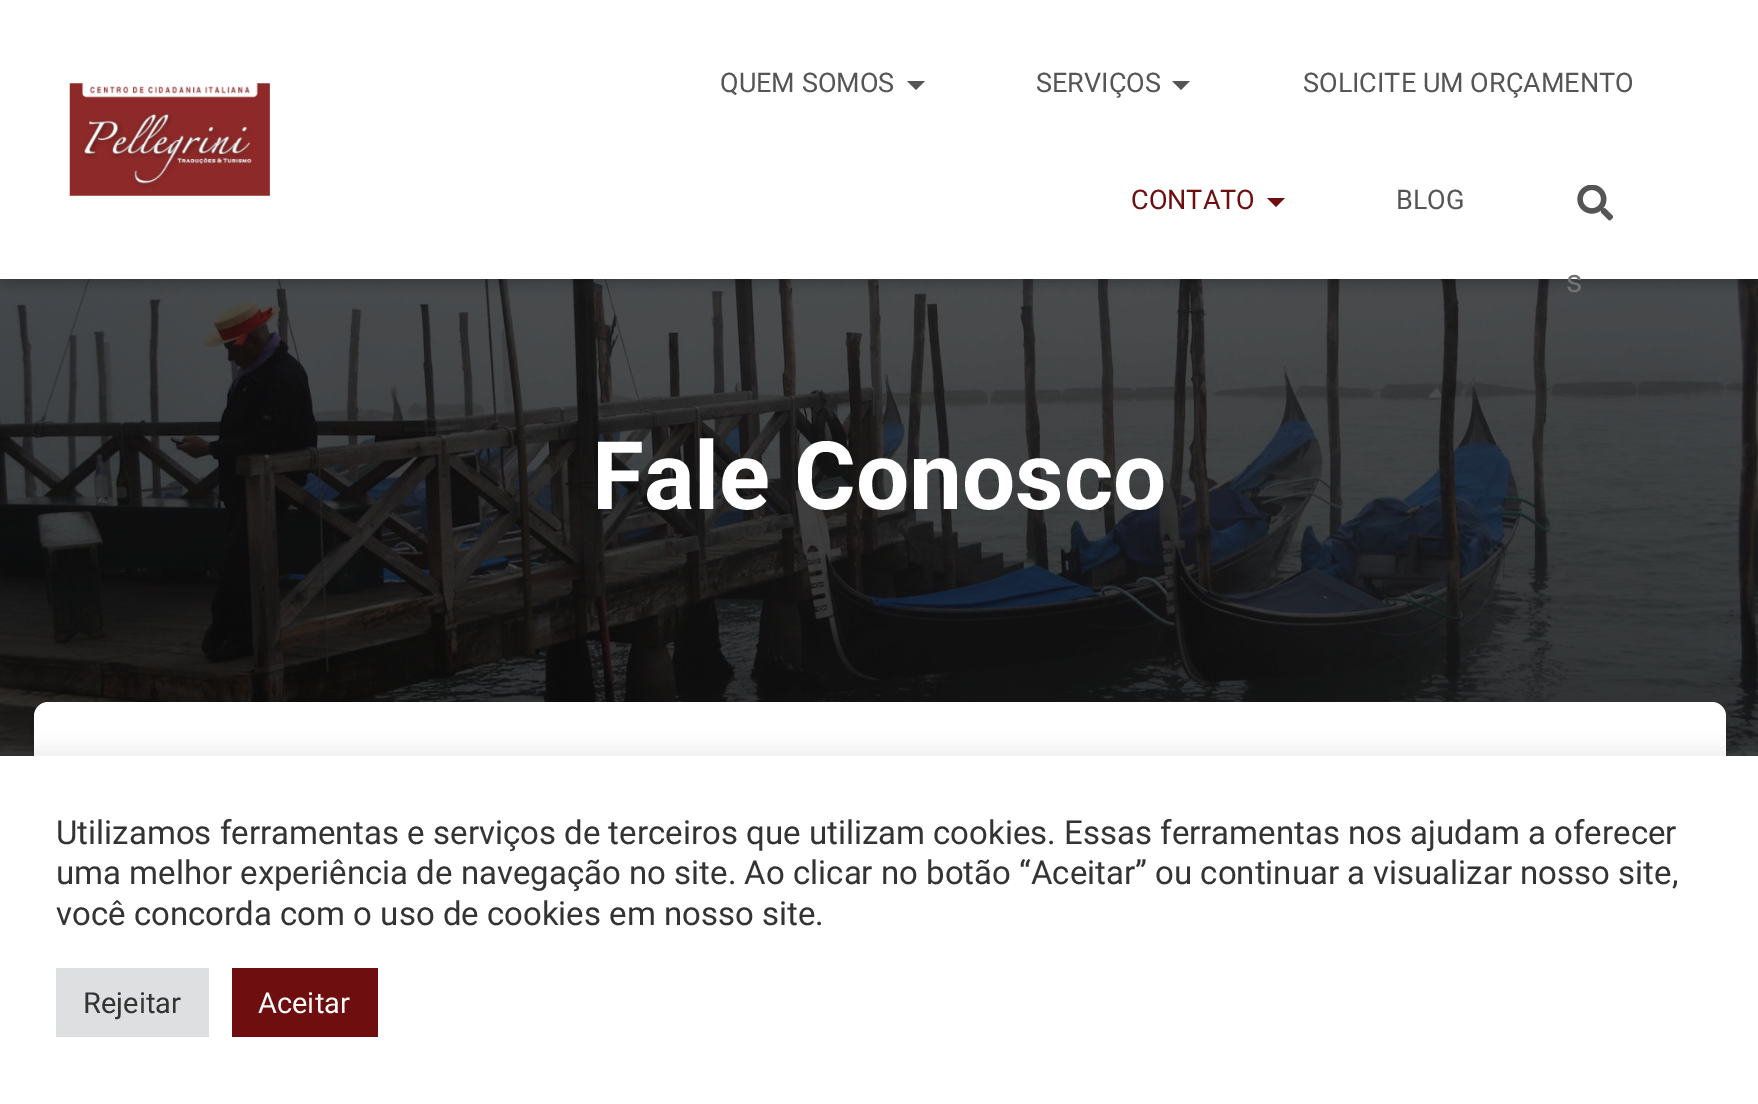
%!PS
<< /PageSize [1758 1104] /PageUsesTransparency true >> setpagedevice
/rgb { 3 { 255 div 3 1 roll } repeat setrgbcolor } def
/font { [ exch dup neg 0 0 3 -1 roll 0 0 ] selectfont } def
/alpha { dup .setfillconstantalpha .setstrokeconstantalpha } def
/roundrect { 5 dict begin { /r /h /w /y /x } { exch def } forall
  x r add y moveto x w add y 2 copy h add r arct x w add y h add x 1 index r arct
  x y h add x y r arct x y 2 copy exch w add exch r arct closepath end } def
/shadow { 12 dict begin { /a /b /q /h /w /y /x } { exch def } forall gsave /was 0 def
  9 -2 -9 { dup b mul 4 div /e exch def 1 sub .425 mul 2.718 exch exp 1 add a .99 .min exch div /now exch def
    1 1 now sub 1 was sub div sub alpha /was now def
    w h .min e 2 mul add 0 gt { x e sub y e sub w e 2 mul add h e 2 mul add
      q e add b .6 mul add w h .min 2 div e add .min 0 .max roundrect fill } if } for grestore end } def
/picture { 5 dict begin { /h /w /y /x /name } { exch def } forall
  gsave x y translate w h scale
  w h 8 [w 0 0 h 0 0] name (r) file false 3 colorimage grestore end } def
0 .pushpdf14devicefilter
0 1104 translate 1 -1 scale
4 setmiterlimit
255 255 255 rgb
0 0 1758 1104 rectfill
(img/3.rgb) 0 279 1758 477 picture
0 0 0 rgb
5 14 1750 270 0 5.5 0.1 shadow
0 2 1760 279 0 11 0.12 shadow
14 16 1732 252 0 11 0.42 shadow
255 255 255 rgb
0 0 1758 279 rectfill
(img/1.rgb) 69 83 201 113 picture
85 85 85 rgb
907 81 moveto 925 81 lineto 916 90 lineto closepath fill
1172 81 moveto 1190 81 lineto 1181 90 lineto closepath fill
110 14 15 rgb
1267 198 moveto 1285 198 lineto 1276 207 lineto closepath fill
(img/2.rgb) 1577 185 36 36 picture
0 0 0 rgb
45 731 1670 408 2 11 0.2 shadow
23 704 1714 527 25 34 0.12 shadow
29 734 1701 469 18 27 0.14 shadow
255 255 255 rgb
48 702 moveto 1712 702 lineto 1719.5 702 1726 708.5 1726 716 curveto 1726 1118 lineto 34 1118 lineto 34 716 lineto 34 708.5 40.5 702 48 702 curveto closepath fill
172 171 171 rgb
0 754 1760 349 0 11 0.3 shadow
[
  [0 756 1758 348 255 255 255]
  [56 968 153 69 222 223 224]
  [232 968 146 69 110 14 15]
] { aload pop rgb rectfill } forall
/Roboto-Regular 27 font
85 85 85 rgb
[
  [(QUEM SOMOS) 720 92]
  [(SERVIÇOS) 1036 92]
  [(SOLICITE UM ORÇAMENTO) 1303 92]
] { aload pop moveto show } forall
110 14 15 rgb
1131 209 moveto (CONTATO) show
85 85 85 rgb
1396 209 moveto (BLOG) show
/Roboto-Regular 32 font
113 114 116 rgb
1566 292 moveto (s) show
/Roboto-Bold 94.5 font
255 255 255 rgb
592 509 moveto (Fale Conosco) show
/Roboto-Regular 33 font
51 51 51 rgb
[
  [(Utilizamos ferramentas e serviços de terceiros que utilizam cookies. Essas ferramentas nos ajudam a oferecer) 56 844]
  [(uma melhor experiência de navegação no site. Ao clicar no botão “Aceitar” ou continuar a visualizar nosso site,) 56 884]
  [(você concorda com o uso de cookies em nosso site.) 56 925]
] { aload pop moveto show } forall
/Roboto-Regular 29 font
83 1013 moveto (Rejeitar) show
255 255 255 rgb
258 1013 moveto (Aceitar) show
.poppdf14devicefilter showpage
